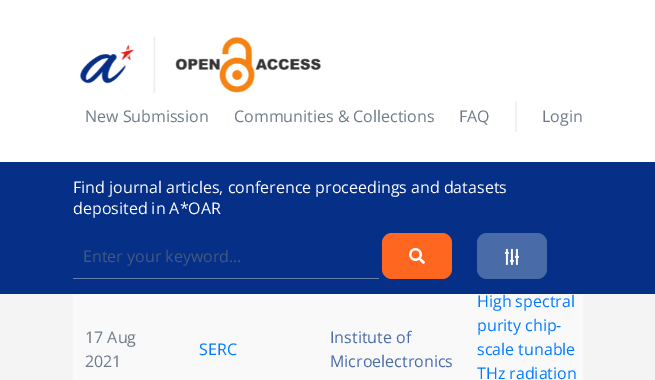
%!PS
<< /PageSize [655 380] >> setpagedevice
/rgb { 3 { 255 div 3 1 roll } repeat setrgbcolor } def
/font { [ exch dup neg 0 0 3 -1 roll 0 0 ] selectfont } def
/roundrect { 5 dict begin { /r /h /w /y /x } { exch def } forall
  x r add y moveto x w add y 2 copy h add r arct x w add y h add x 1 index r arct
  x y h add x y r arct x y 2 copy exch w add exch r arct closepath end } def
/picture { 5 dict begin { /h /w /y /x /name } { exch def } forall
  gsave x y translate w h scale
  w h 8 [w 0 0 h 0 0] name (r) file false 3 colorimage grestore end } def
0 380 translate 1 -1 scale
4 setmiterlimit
244 244 244 rgb
0 0 655 380 rectfill
255 255 255 rgb
0 0 655 162 rectfill
(img/1.rgb) 80 37 241 56 picture
[
  [515 101 2 31 242 242 242]
  [0 162 655 132 6 47 135]
  [73 278 306 1 99 125 173]
] { aload pop rgb rectfill } forall
255 103 32 rgb
382 233 70 46 10 roundrect fill
(img/2.rgb) 409 248 16 16 picture
73 107 168 rgb
477 233 70 46 10 roundrect fill
(img/3.rgb) 504 248 15 17 picture
249 249 249 rgb
73 294 510 86 rectfill
/OpenSans-Regular 16 font
111 122 137 rgb
[
  [(New Submission) 85 122]
  [(Communities & Collections) 234 122]
  [(FAQ) 459 122]
  [(Login) 542 122]
] { aload pop moveto show } forall
255 255 255 rgb
73 193 moveto (Find journal articles, conference proceedings and datasets) show
73 214 moveto (deposited in A*OAR) show
67 89 129 rgb
83 262 moveto (Enter your keyword...) show
111 122 137 rgb
85 343 moveto (17 Aug) show
85 367 moveto (2021) show
0 123 255 rgb
199 355 moveto (SERC) show
73 107 168 rgb
330 343 moveto (Institute of) show
330 367 moveto (Microelectronics) show
0 123 255 rgb
[
  [(High spectral) 477 307]
  [(purity chip-) 477 331]
  [(scale tunable) 477 355]
  [(THz radiation) 477 379]
] { aload pop moveto show } forall
showpage
